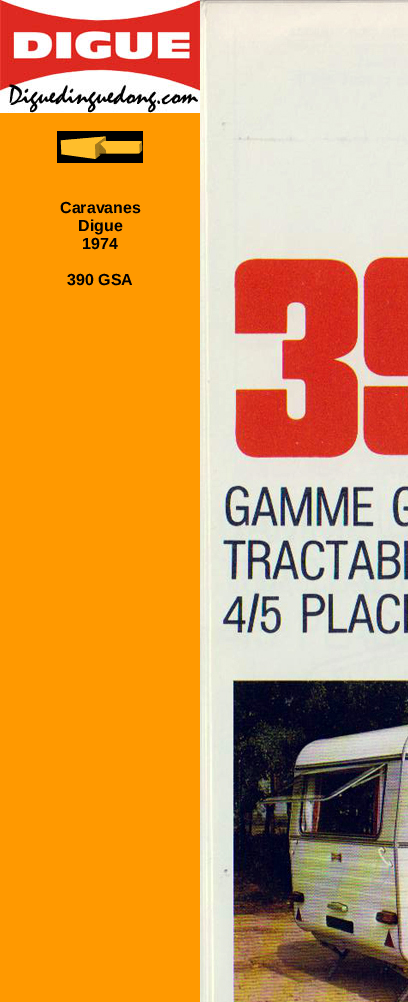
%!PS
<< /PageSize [408 1002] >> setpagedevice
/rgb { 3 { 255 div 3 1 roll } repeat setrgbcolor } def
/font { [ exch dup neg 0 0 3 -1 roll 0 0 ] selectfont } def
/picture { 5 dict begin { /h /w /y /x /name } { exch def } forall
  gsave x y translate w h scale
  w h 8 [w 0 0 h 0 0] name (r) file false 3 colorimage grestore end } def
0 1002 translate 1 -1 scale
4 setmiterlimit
255 153 0 rgb
0 0 408 1002 rectfill
(img/1.rgb) 0 0 200 113 picture
(img/2.rgb) 57 131 86 32 picture
(img/3.rgb) 200 0 208 1002 picture
/LiberationSans-Bold 16 font
0 0 0 rgb
[
  [(Caravanes) 60 213]
  [(Digue) 78 231]
  [(1974) 82 249]
  [(390 GSA) 67 285]
] { aload pop moveto show } forall
showpage
